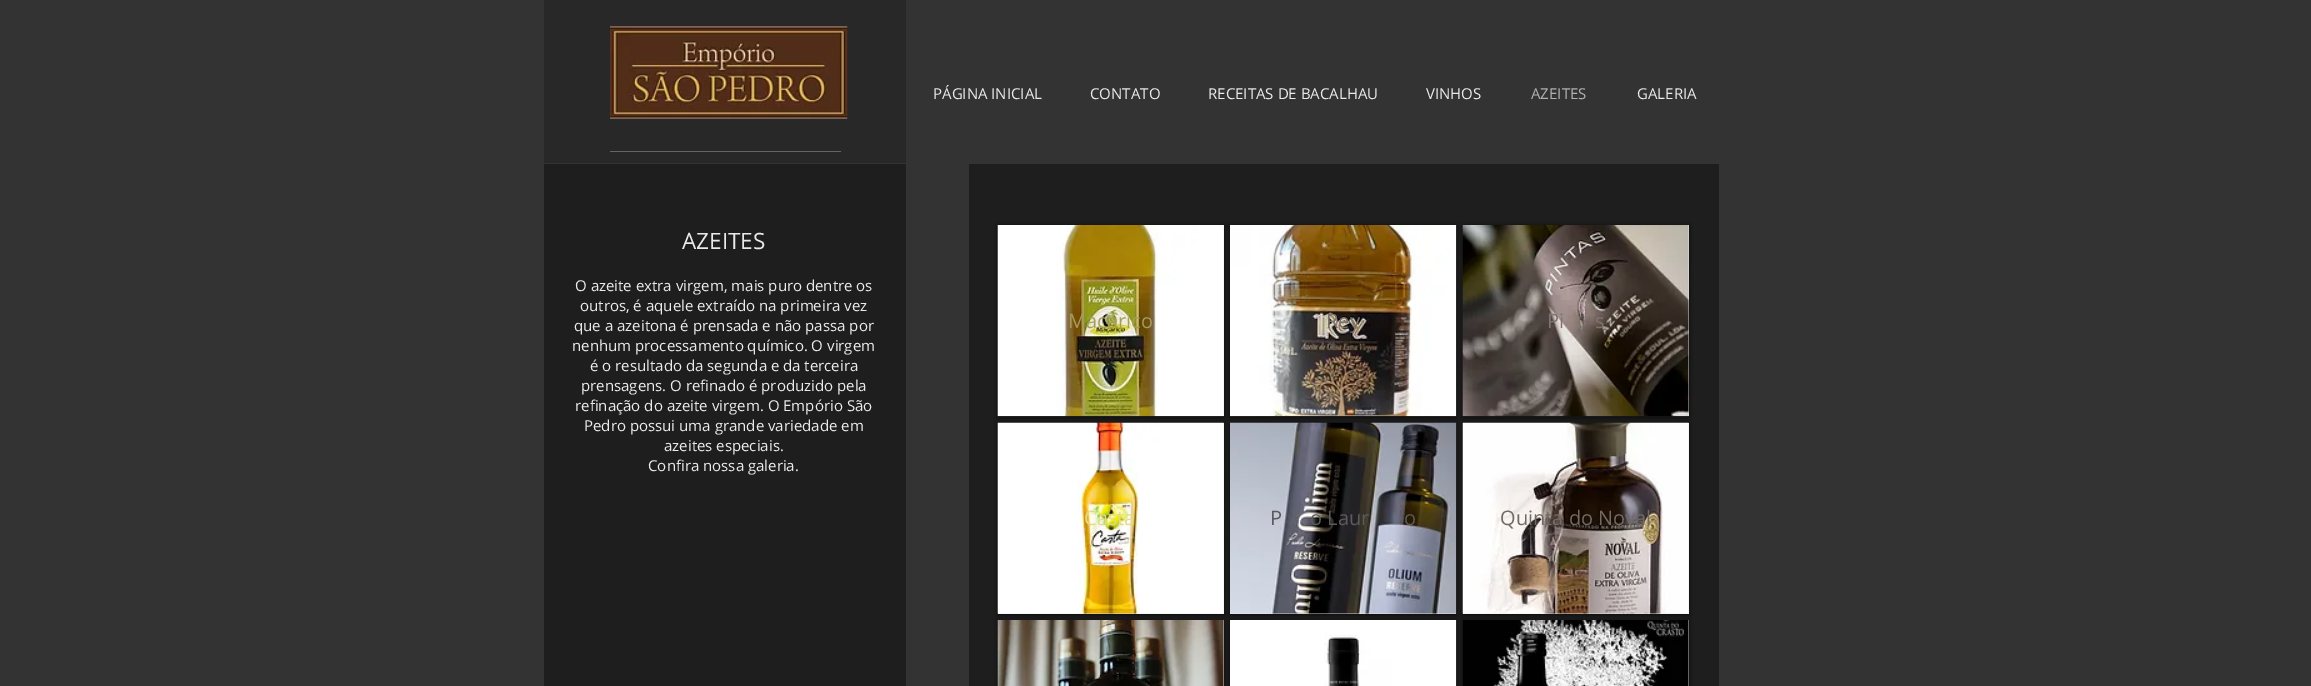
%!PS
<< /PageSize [2311 686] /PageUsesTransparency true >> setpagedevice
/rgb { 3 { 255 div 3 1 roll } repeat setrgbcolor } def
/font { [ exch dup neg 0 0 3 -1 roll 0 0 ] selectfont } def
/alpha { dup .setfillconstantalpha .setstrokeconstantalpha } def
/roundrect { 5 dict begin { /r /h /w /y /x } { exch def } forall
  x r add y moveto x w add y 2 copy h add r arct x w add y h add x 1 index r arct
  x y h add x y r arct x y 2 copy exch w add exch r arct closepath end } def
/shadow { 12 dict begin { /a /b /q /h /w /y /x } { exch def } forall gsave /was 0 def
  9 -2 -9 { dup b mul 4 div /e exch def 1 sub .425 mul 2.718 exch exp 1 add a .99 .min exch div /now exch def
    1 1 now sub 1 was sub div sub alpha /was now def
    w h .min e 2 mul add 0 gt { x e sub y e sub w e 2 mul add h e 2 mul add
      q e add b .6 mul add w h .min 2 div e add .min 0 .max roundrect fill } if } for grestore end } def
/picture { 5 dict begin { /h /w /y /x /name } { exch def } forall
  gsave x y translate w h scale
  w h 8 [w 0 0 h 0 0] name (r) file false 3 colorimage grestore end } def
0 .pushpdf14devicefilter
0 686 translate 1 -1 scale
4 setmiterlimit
51 51 51 rgb
0 0 2311 686 rectfill
40 40 40 rgb
544 0 362 163 rectfill
(img/1.rgb) 610 26 238 93 picture
[
  [610 151 231 1 101 101 101]
  [544 164 362 522 30 30 30]
  [969 164 750 522 30 30 30]
] { aload pop rgb rectfill } forall
0 0 0 rgb
998 226 226 192 0 2.5 0.6 shadow
234 234 234 rgb
1223 225 1 191 rectfill
(img/2.rgb) 997 225 227 192 picture
0 0 0 rgb
1230 226 226 192 0 2.5 0.6 shadow
(img/3.rgb) 1230 225 227 192 picture
1463 226 226 192 0 2.5 0.6 shadow
234 234 234 rgb
1688 225 1 191 rectfill
(img/4.rgb) 1462 225 227 192 picture
0 0 0 rgb
998 424 226 191 0 2.5 0.6 shadow
234 234 234 rgb
998 423 226 191 rectfill
(img/5.rgb) 997 422 227 192 picture
0 0 0 rgb
1230 424 226 191 0 2.5 0.6 shadow
234 234 234 rgb
1230 613 226 1 rectfill
(img/6.rgb) 1230 422 227 192 picture
0 0 0 rgb
1463 424 226 191 0 2.5 0.6 shadow
234 234 234 rgb
1463 423 226 191 rectfill
(img/7.rgb) 1462 422 227 192 picture
0 0 0 rgb
998 621 226 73 0 2.5 0.6 shadow
234 234 234 rgb
1223 620 1 66 rectfill
(img/8.rgb) 997 620 227 66 picture
0 0 0 rgb
1230 621 226 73 0 2.5 0.6 shadow
(img/9.rgb) 1230 620 227 66 picture
1463 621 226 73 0 2.5 0.6 shadow
234 234 234 rgb
1688 620 1 66 rectfill
(img/10.rgb) 1462 620 227 66 picture
/OpenSans-Regular 15 font
[
  [(PÁGINA INICIAL) 933 99]
  [(CONTATO) 1090 99]
  [(RECEITAS DE BACALHAU) 1208 99]
  [(VINHOS) 1426 99]
] { aload pop moveto show } forall
178 177 177 rgb
1531 99 moveto (AZEITES) show
234 234 234 rgb
1637 99 moveto (GALERIA) show
/OpenSans-Regular 22.5 font
682 249 moveto (AZEITES) show
/OpenSans-Regular 15 font
[
  [(O azeite extra virgem, mais puro dentre os) 575 291]
  [(outros, é aquele extraído na primeira vez) 580 311]
  [(que a azeitona é prensada e não passa por) 574 331]
  [(nenhum processamento químico. O virgem) 572 351]
  [(é o resultado da segunda e da terceira) 590 371]
  [(prensagens. O refinado é produzido pela) 581 391]
  [(refinação do azeite virgem. O Empório São) 575 411]
  [(Pedro possui uma grande variedade em) 584 431]
  [(azeites especiais.) 664 451]
  [(Confira nossa galeria.) 648 471]
] { aload pop moveto show } forall
/OpenSans-Regular 20 font
166 155 89 rgb
1068 328 moveto (Maçarico) show
123 115 104 rgb
1326 328 moveto (Rey) show
128 114 110 rgb
1547 328 moveto (Pi) show
1595 328 moveto (s) show
226 219 129 rgb
1084 525 moveto (Casta) show
91 90 93 rgb
[
  [(P) 1270 525]
  [(o Laur) 1310 525]
  [(o) 1404 525]
] { aload pop moveto show } forall
115 106 100 rgb
1500 525 moveto (Quinta do Noval) show
.poppdf14devicefilter showpage
